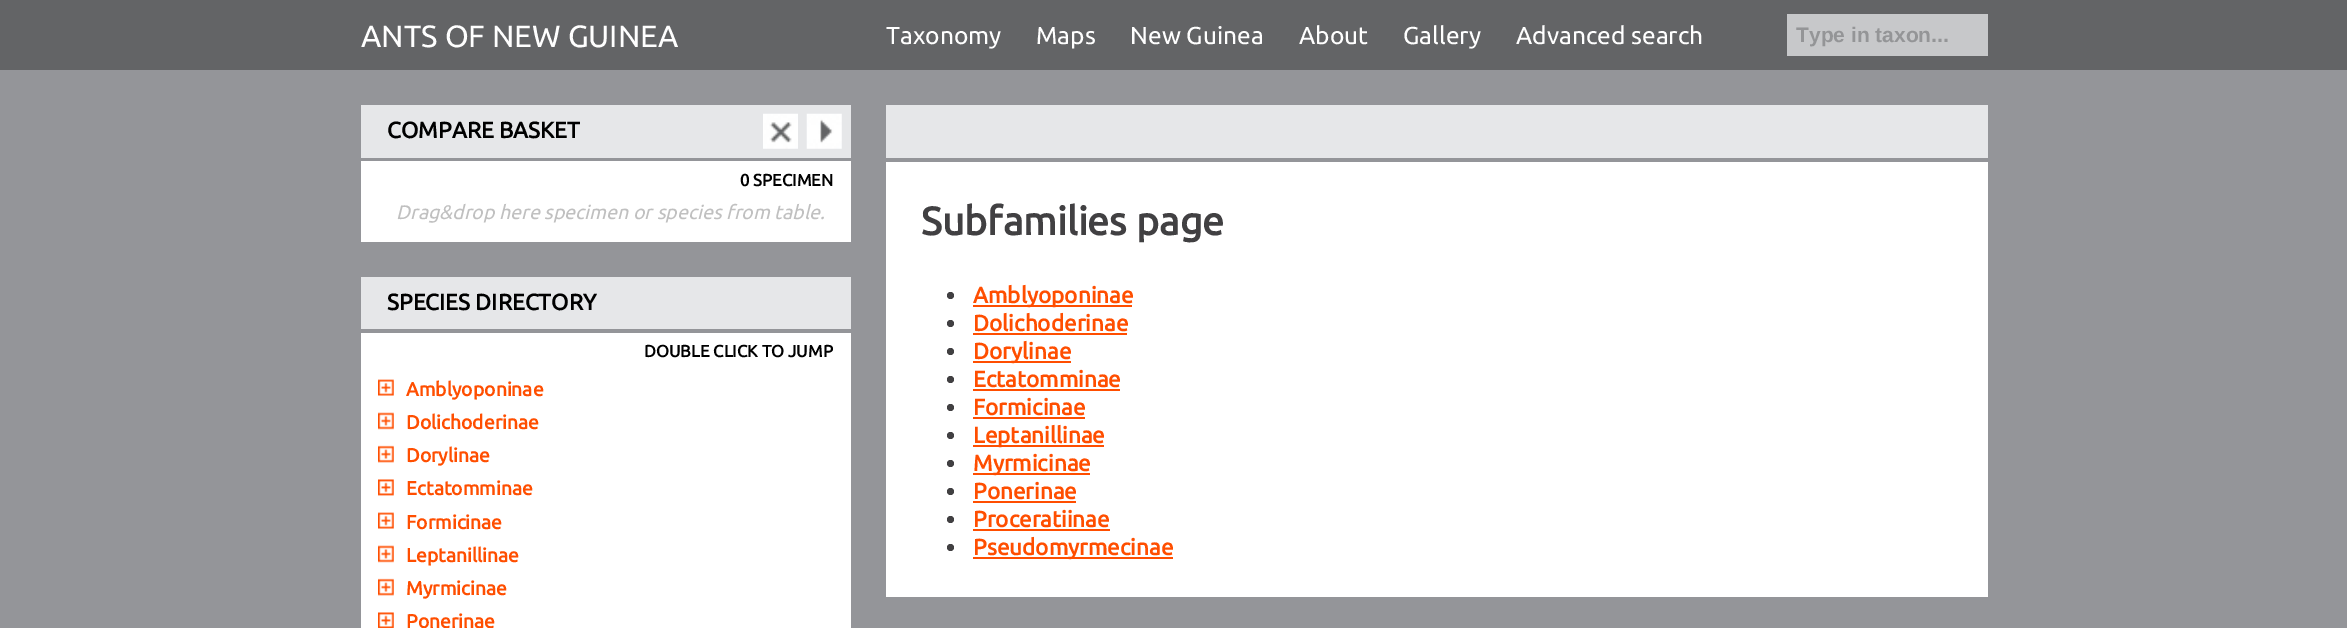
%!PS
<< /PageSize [2347 628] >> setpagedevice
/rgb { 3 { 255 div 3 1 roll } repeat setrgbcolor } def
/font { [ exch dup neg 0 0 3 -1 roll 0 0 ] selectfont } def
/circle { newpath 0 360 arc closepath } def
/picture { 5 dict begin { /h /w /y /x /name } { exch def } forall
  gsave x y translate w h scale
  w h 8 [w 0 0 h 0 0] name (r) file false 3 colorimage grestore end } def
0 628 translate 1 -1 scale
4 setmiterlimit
148 149 153 rgb
0 0 2347 628 rectfill
[
  [0 0 2347 70 99 100 102]
  [1787 14 201 42 199 200 202]
  [361 105 490 53 230 231 233]
] { aload pop rgb rectfill } forall
(img/1.rgb) 763 113 35 36 picture
(img/2.rgb) 806 113 36 36 picture
[
  [361 161 490 81 255 255 255]
  [361 277 490 52 230 231 233]
  [361 333 490 295 255 255 255]
] { aload pop rgb rectfill } forall
(img/3.rgb) 378 379 16 17 picture
(img/4.rgb) 378 412 16 18 picture
(img/5.rgb) 378 445 16 18 picture
(img/6.rgb) 378 479 16 17 picture
(img/3.rgb) 378 512 16 17 picture
(img/4.rgb) 378 545 16 18 picture
(img/5.rgb) 378 578 16 18 picture
(img/7.rgb) 378 612 16 16 picture
886 162 1102 435 rectfill
230 231 233 rgb
886 105 1102 53 rectfill
65 64 66 rgb
950.5 295.5 3.5 circle fill
255 78 0 rgb
973 305 159 2 rectfill
65 64 66 rgb
950.5 323.5 3.5 circle fill
255 78 0 rgb
973 333 154 2 rectfill
65 64 66 rgb
950.5 351.5 3.5 circle fill
255 78 0 rgb
973 361 98 2 rectfill
65 64 66 rgb
950.5 379.5 3.5 circle fill
255 78 0 rgb
973 389 147 2 rectfill
65 64 66 rgb
950.5 407.5 3.5 circle fill
255 78 0 rgb
973 417 112 2 rectfill
65 64 66 rgb
950.5 435.5 3.5 circle fill
255 78 0 rgb
973 445 131 2 rectfill
65 64 66 rgb
950.5 463.5 3.5 circle fill
255 78 0 rgb
973 473 117 2 rectfill
65 64 66 rgb
950.5 491.5 3.5 circle fill
255 78 0 rgb
973 501 103 2 rectfill
65 64 66 rgb
950.5 519.5 3.5 circle fill
255 78 0 rgb
973 529 137 2 rectfill
65 64 66 rgb
950.5 547.5 3.5 circle fill
255 78 0 rgb
973 557 200 2 rectfill
/Ubuntu-Regular 30.75 font
255 255 255 rgb
361 47 moveto (ANTS OF NEW GUINEA) show
/Ubuntu-Regular 24.5 font
[
  [(Taxonomy) 886 44]
  [(Maps) 1036 44]
  [(New Guinea) 1130 44]
  [(About) 1299 44]
  [(Gallery) 1403 44]
  [(Advanced search) 1516 44]
] { aload pop moveto show } forall
gsave
1796 23 192 24 rectclip
/LiberationSans-Bold 21 font
148 149 151 rgb
1796 42 moveto (Type in taxon...) show
grestore
/Ubuntu-Bold 22.5 font
0 0 0 rgb
387 138 moveto (COMPARE BASKET) show
/Ubuntu-Bold 16.75 font
740 186 moveto (0 SPECIMEN) show
/Ubuntu-Italic 19.6 font
192 192 192 rgb
396 219 moveto (Drag&drop here specimen or species from table.) show
/Ubuntu-Bold 22.5 font
0 0 0 rgb
387 310 moveto (SPECIES DIRECTORY) show
/Ubuntu-Bold 16.75 font
644 357 moveto (DOUBLE CLICK TO JUMP) show
/Ubuntu-Bold 19.25 font
255 78 0 rgb
[
  [(Amblyoponinae) 406 396]
  [(Dolichoderinae) 406 429]
  [(Dorylinae) 406 462]
  [(Ectatomminae) 406 495]
  [(Formicinae) 406 529]
  [(Leptanillinae) 406 562]
  [(Myrmicinae) 406 595]
  [(Ponerinae) 406 628]
] { aload pop moveto show } forall
/Ubuntu-Bold 39.25 font
65 64 66 rgb
921 235 moveto (Subfamilies page) show
/Ubuntu-Bold 22.5 font
255 78 0 rgb
[
  [(Amblyoponinae) 973 303]
  [(Dolichoderinae) 973 331]
  [(Dorylinae) 973 359]
  [(Ectatomminae) 973 387]
  [(Formicinae) 973 415]
  [(Leptanillinae) 973 443]
  [(Myrmicinae) 973 471]
  [(Ponerinae) 973 499]
  [(Proceratiinae) 973 527]
  [(Pseudomyrmecinae) 973 555]
] { aload pop moveto show } forall
showpage
